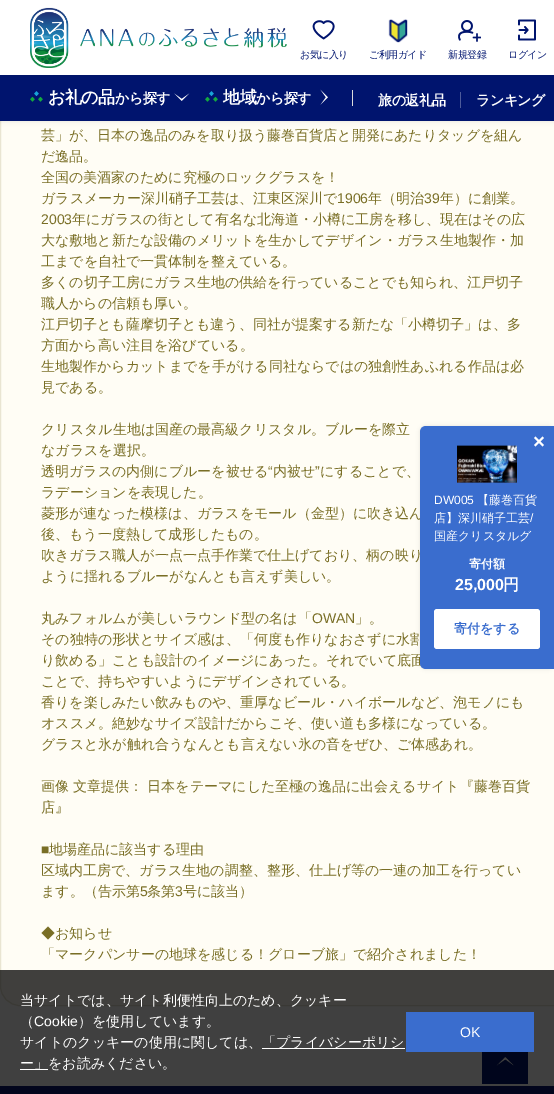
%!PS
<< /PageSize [554 1094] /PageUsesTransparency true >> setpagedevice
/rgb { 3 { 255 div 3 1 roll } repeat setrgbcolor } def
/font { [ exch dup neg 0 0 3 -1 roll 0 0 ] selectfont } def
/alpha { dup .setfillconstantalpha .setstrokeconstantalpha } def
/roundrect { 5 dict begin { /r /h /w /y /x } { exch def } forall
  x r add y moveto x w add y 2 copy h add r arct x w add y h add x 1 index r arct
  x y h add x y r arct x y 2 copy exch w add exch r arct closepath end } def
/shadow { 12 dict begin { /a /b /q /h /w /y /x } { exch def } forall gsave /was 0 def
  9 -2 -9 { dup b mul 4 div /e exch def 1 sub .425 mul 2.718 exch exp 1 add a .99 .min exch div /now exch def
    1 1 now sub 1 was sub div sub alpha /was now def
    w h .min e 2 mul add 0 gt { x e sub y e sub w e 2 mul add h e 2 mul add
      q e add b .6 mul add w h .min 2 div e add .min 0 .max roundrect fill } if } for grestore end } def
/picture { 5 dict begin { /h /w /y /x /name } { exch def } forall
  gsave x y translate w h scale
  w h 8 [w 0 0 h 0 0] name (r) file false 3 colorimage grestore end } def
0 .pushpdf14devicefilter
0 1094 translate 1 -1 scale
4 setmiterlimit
255 255 255 rgb
0 0 554 1094 rectfill
255 253 245 rgb
20 -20 moveto 554 -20 lineto 554 1006 lineto 20 1006 lineto 9 1006 0 997 0 986 curveto 0 0 lineto 0 -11 9 -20 20 -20 curveto closepath fill
233 229 210 rgb
0.5 -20.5 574 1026 19.5 roundrect stroke
0 0 0 rgb
0 75 554 46 0 2.5 0.1 shadow
0 20 110 rgb
0 75 554 46 rectfill
0 0 0 rgb
0 0 554 75 0 2.5 0.1 shadow
255 255 255 rgb
0 0 554 75 rectfill
(img/1.rgb) 30 7 257 61 picture
(img/2.rgb) 312 20 23 20 picture
(img/3.rgb) 388 19 20 24 picture
(img/4.rgb) 458 20 23 22 picture
(img/5.rgb) 518 19 18 22 picture
(img/6.rgb) 30 91 13 11 picture
(img/7.rgb) 174 93 16 8 picture
(img/6.rgb) 205 91 13 11 picture
(img/8.rgb) 320 89 8 16 picture
220 220 220 rgb
352 90 1 16 rectfill
77 91 154 rgb
460 92 1 16 rectfill
0 0 0 rgb
420 426 134 243 6 2 0.1 shadow
8 21 112 rgb
0 1086 554 8 rectfill
0 20 110 rgb
482 1052 46 32 rectfill
(img/10.rgb) 496 1057 18 9 picture
0.75 alpha
[
  [0 970 554 124 0 0 0]
] { aload pop rgb rectfill } forall
1 alpha
[
  [262 1048 143 1 255 255 255]
  [20 1069 28 1 255 255 255]
  [406 1012 128 40 58 109 206]
] { aload pop rgb rectfill } forall
/WenQuanYiZenHei-Medium 10 font
0 20 110 rgb
300 58 moveto -0.5 0 (お気に入り) ashow
369 58 moveto -0.5 0 (ご利用ガイド) ashow
448 58 moveto -0.5 0 (新規登録) ashow
508 58 moveto -0.5 0 (ログイン) ashow
/WenQuanYiZenHei-Bold 17 font
255 255 255 rgb
48 103 moveto -0.5 0 (お礼の品) ashow
/WenQuanYiZenHei-Bold 14 font
115 103 moveto -0.5 0 (から探す) ashow
/WenQuanYiZenHei-Bold 17 font
223 103 moveto -0.5 0 (地域) ashow
/WenQuanYiZenHei-Bold 14 font
256 103 moveto -0.5 0 (から探す) ashow
378 105 moveto -0.5 0 (旅の返礼品) ashow
476 105 moveto -0.5 0 (ランキング) ashow
/WenQuanYiZenHei-Medium 14 font
121 110 37 rgb
[
  [(芸」が、日本の逸品のみを取り扱う藤巻百貨店と開発にあたりタッグを組ん) 41 140]
  [(だ逸品。) 41 161]
  [(全国の美酒家のために究極のロックグラスを！) 41 182]
  [(ガラスメーカー深川硝子工芸は、江東区深川で) 41 203]
] { aload pop moveto show } forall
/LiberationSans-Regular 14 font
337 203 moveto (1906) show
/WenQuanYiZenHei-Medium 14 font
368 203 moveto (年（明治) show
/LiberationSans-Regular 14 font
424 203 moveto (39) show
/WenQuanYiZenHei-Medium 14 font
440 203 moveto (年）に創業。) show
/LiberationSans-Regular 14 font
41 224 moveto (2003) show
/WenQuanYiZenHei-Medium 14 font
[
  [(年にガラスの街として有名な北海道・小樽に工房を移し、現在はその広) 72 224]
  [(大な敷地と新たな設備のメリットを生かしてデザイン・ガラス生地製作・加) 41 245]
  [(工までを自社で一貫体制を整えている。) 41 266]
  [(多くの切子工房にガラス生地の供給を行っていることでも知られ、江戸切子) 41 287]
  [(職人からの信頼も厚い。) 41 308]
  [(江戸切子とも薩摩切子とも違う、同社が提案する新たな「小樽切子」は、多) 41 329]
  [(方面から高い注目を浴びている。) 41 350]
  [(生地製作からカットまでを手がける同社ならではの独創性あふれる作品は必) 41 371]
  [(見である。) 41 392]
  [(クリスタル生地は国産の最高級クリスタル。ブルーを際立) 41 434]
  [(なガラスを選択。) 41 455]
  [(透明ガラスの内側にブルーを被せる) 41 476]
] { aload pop moveto show } forall
/LiberationSans-Regular 14 font
268 476 moveto (“) show
/WenQuanYiZenHei-Medium 14 font
273 476 moveto (内被せ) show
/LiberationSans-Regular 14 font
315 476 moveto (”) show
/WenQuanYiZenHei-Medium 14 font
[
  [(にすることで、) 320 476]
  [(ラデーションを表現した。) 41 497]
  [(菱形が連なった模様は、ガラスをモール（金型）に吹き込ん) 41 518]
  [(後、もう一度熱して成形したもの。) 41 539]
  [(吹きガラス職人が一点一点手作業で仕上げており、柄の映り) 41 560]
  [(ように揺れるブルーがなんとも言えず美しい。) 41 581]
  [(丸みフォルムが美しいラウンド型の名は「) 41 623]
] { aload pop moveto show } forall
/LiberationSans-Regular 14 font
312 623 moveto (OWAN) show
/WenQuanYiZenHei-Medium 14 font
[
  [(」。) 355 623]
  [(その独特の形状とサイズ感は、「何度も作りなおさずに水割) 41 644]
  [(り飲める」ことも設計のイメージにあった。それでいて底面) 41 665]
  [(ことで、持ちやすいようにデザインされている。) 41 686]
  [(香りを楽しみたい飲みものや、重厚なビール・ハイボールなど、泡モノにも) 41 707]
  [(オススメ。絶妙なサイズ設計だからこそ、使い道も多様になっている。) 41 728]
  [(グラスと氷が触れ合うなんとも言えない氷の音をぜひ、ご体感あれ。) 41 749]
  [(画像 文章提供： 日本をテーマにした至極の逸品に出会えるサイト『藤巻百貨) 41 791]
  [(店』) 41 812]
] { aload pop moveto show } forall
/LiberationSans-Regular 14 font
41 854 moveto (■) show
/WenQuanYiZenHei-Medium 14 font
[
  [(地場産品に該当する理由) 49 854]
  [(区域内工房で、ガラス生地の調整、整形、仕上げ等の一連の加工を行ってい) 41 875]
  [(ます。（告示第) 41 896]
] { aload pop moveto show } forall
/LiberationSans-Regular 14 font
140 896 moveto (5) show
/WenQuanYiZenHei-Medium 14 font
147 896 moveto (条第) show
/LiberationSans-Regular 14 font
175 896 moveto (3) show
/WenQuanYiZenHei-Medium 14 font
[
  [(号に該当）) 183 896]
  [(◆お知らせ) 41 938]
  [(「マークパンサーの地球を感じる！グローブ旅」で紹介されました！) 41 959]
] { aload pop moveto show } forall
58 109 206 rgb
426 426 moveto 554 426 lineto 554 669 lineto 426 669 lineto 422.5 669 420 666.5 420 663 curveto 420 432 lineto 420 428.5 422.5 426 426 426 curveto closepath fill
255 255 255 rgb
535.5 436.5 moveto 544 445 lineto 542.5 446.5 lineto 534 438 lineto closepath fill
544 438 moveto 535.5 446.5 lineto 534 445 lineto 542.5 436.5 lineto closepath fill
(img/9.rgb) 457 445 60 38 picture
/LiberationSans-Regular 12 font
434 504 moveto (DW005) show
/WenQuanYiZenHei-Medium 12 font
477 504 moveto (【藤巻百貨) show
434 522 moveto (店】深川硝子工芸) show
/LiberationSans-Regular 12 font
530 522 moveto (/) show
/WenQuanYiZenHei-Medium 12 font
434 540 moveto (国産クリスタルグ) show
/WenQuanYiZenHei-Bold 12 font
469 568 moveto (寄付額) show
/LiberationSans-Bold 16 font
455 590 moveto (25,000) show
/WenQuanYiZenHei-Bold 16 font
503 590 moveto (円) show
434 609 106 40 3 roundrect fill
/WenQuanYiZenHei-Bold 13 font
58 109 206 rgb
454 633 moveto (寄付をする) show
/WenQuanYiZenHei-Medium 14 font
255 255 255 rgb
20 1005 moveto (当サイトでは、サイト利便性向上のため、クッキー) show
20 1026 moveto (（) show
/LiberationSans-Regular 14 font
34 1026 moveto (Cookie) show
/WenQuanYiZenHei-Medium 14 font
[
  [(）を使用しています。) 78 1026]
  [(サイトのクッキーの使用に関しては、) 20 1047]
  [(「プライバシーポリシ) 262 1047]
  [(ー」をお読みください。) 20 1068]
] { aload pop moveto show } forall
/LiberationSans-Regular 14 font
460 1037 moveto (OK) show
.poppdf14devicefilter showpage
